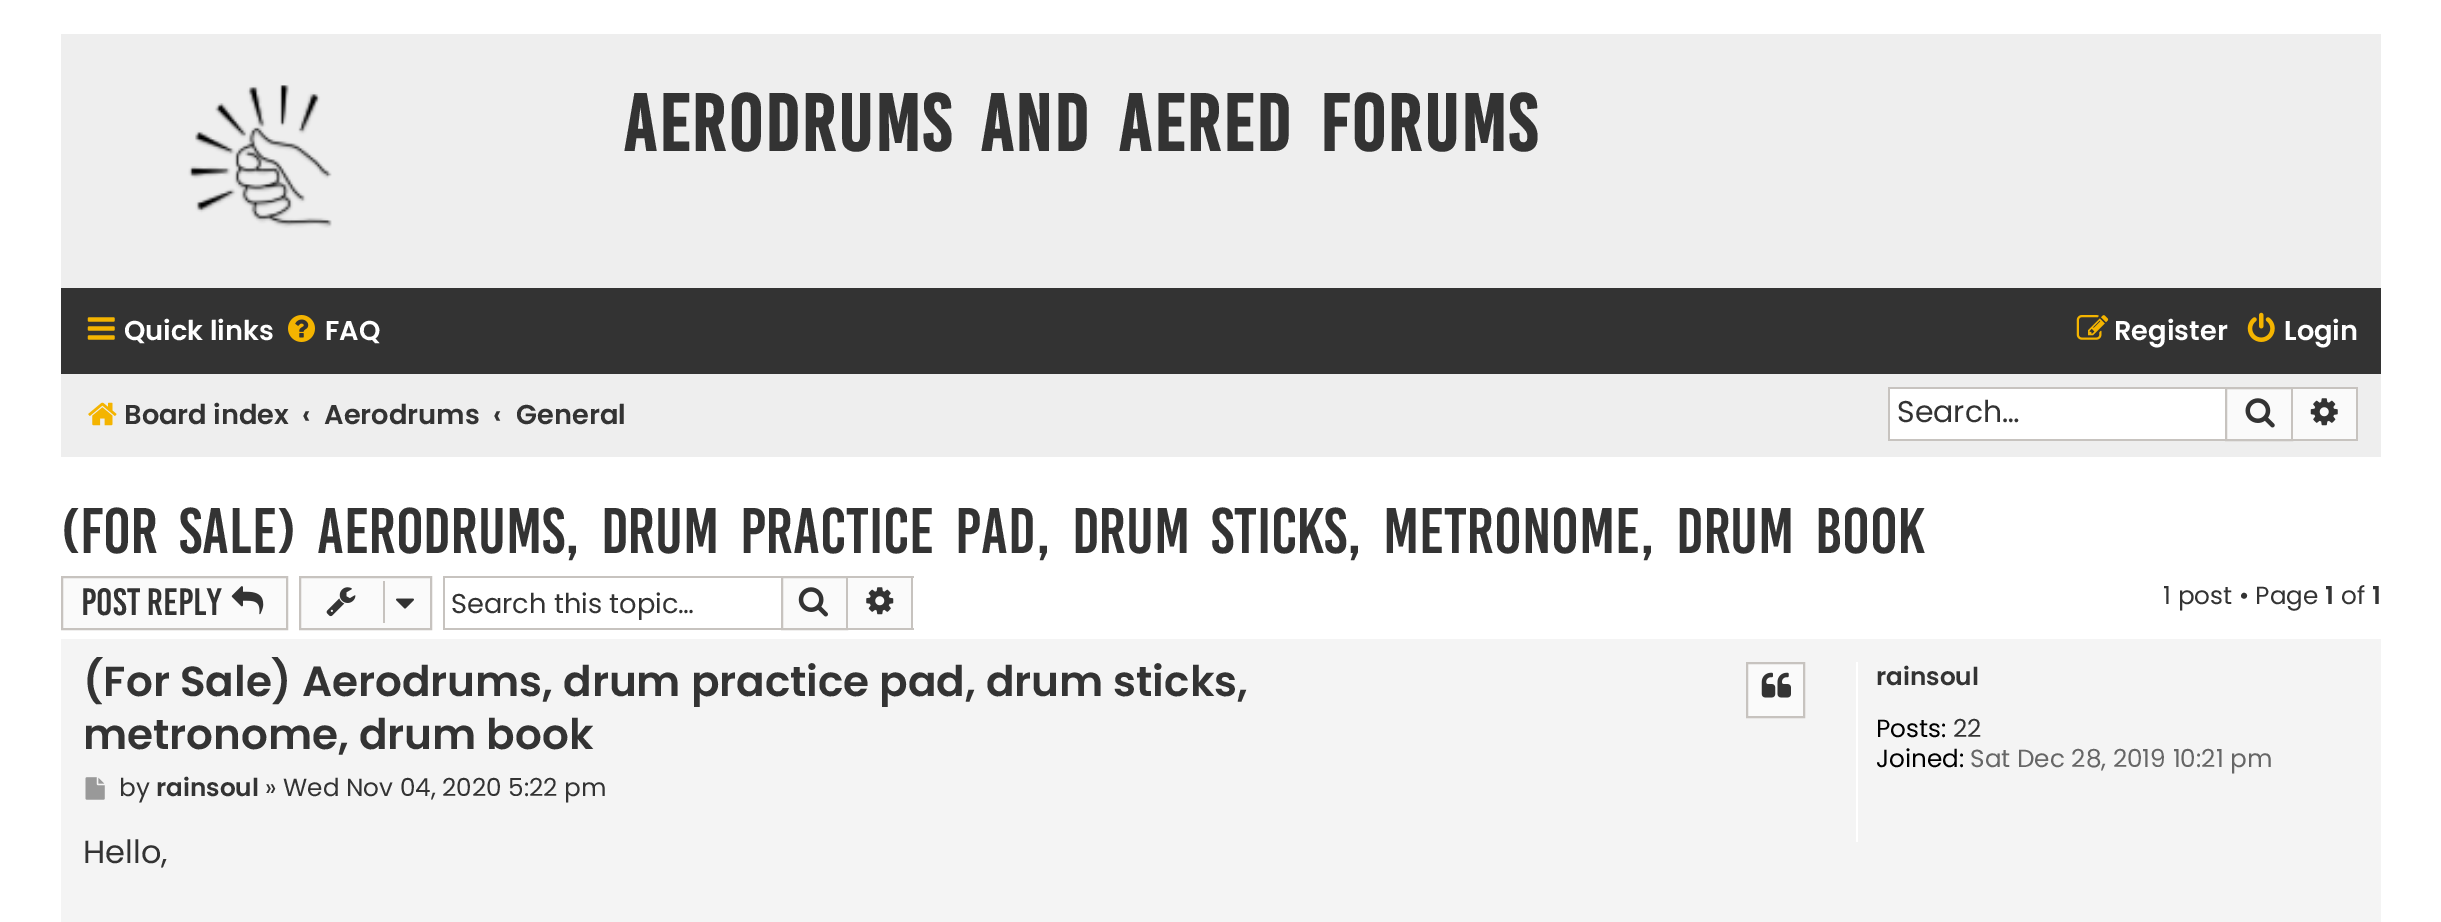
%!PS
<< /PageSize [2441 922] >> setpagedevice
/rgb { 3 { 255 div 3 1 roll } repeat setrgbcolor } def
/font { [ exch dup neg 0 0 3 -1 roll 0 0 ] selectfont } def
/picture { 5 dict begin { /h /w /y /x /name } { exch def } forall
  gsave x y translate w h scale
  w h 8 [w 0 0 h 0 0] name (r) file false 3 colorimage grestore end } def
0 922 translate 1 -1 scale
4 setmiterlimit
255 255 255 rgb
0 0 2441 922 rectfill
238 238 238 rgb
61 34 2320 254 rectfill
(img/1.rgb) 188 85 144 143 picture
51 51 51 rgb
61 288 2320 86 rectfill
(img/2.rgb) 87 317 28 23 picture
(img/3.rgb) 288 315 27 27 picture
(img/4.rgb) 2076 315 33 25 picture
(img/5.rgb) 2247 312 28 30 picture
238 238 238 rgb
61 374 2320 83 rectfill
(img/6.rgb) 88 402 29 24 picture
[
  [1890 389 335 50 255 255 255]
  [1888 387 337 2 199 195 191]
  [1888 439 337 2 199 195 191]
  [1888 387 2 54 199 195 191]
] { aload pop rgb rectfill } forall
250 250 250 rgb
2226 388 moveto 2292 388 lineto 2292 440 lineto 2226 440 lineto closepath gsave fill grestore
199 195 191 rgb
2 setlinewidth
stroke
(img/7.rgb) 2245 398 30 30 picture
[
  [2293 389 63 50 250 250 250]
  [2293 387 65 2 199 195 191]
  [2356 387 2 54 199 195 191]
  [2293 439 65 2 199 195 191]
] { aload pop rgb rectfill } forall
(img/8.rgb) 2310 398 28 28 picture
250 250 250 rgb
62 577 moveto 287 577 lineto 287 629 lineto 62 629 lineto closepath gsave fill grestore
199 195 191 rgb
stroke
(img/9.rgb) 231 586 33 29 picture
250 250 250 rgb
300 577 moveto 431 577 lineto 431 629 lineto 300 629 lineto closepath gsave fill grestore
199 195 191 rgb
stroke
(img/10.rgb) 326 587 30 30 picture
383 581 2 42 rectfill
(img/11.rgb) 396 598 18 11 picture
[
  [443 576 338 2 199 195 191]
  [443 628 338 2 199 195 191]
  [443 576 2 54 199 195 191]
] { aload pop rgb rectfill } forall
250 250 250 rgb
782 577 moveto 847 577 lineto 847 629 lineto 782 629 lineto closepath gsave fill grestore
199 195 191 rgb
stroke
(img/12.rgb) 798 587 30 30 picture
[
  [848 578 63 50 250 250 250]
  [848 576 66 2 199 195 191]
  [911 576 2 54 199 195 191]
  [848 628 66 2 199 195 191]
] { aload pop rgb rectfill } forall
(img/13.rgb) 866 587 28 28 picture
244 244 244 rgb
61 639 2320 283 rectfill
250 250 250 rgb
1747 663 moveto 1804 663 lineto 1804 717 lineto 1747 717 lineto closepath gsave fill grestore
199 195 191 rgb
stroke
(img/14.rgb) 1761 672 30 26 picture
(img/15.rgb) 85 777 20 23 picture
255 255 255 rgb
1856 662 2 180 rectfill
/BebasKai-Bold 61.9 font
51 51 51 rgb
623 151 moveto 9 0 32 2.25 0 (Aerodrums and Aered forums) awidthshow
/Poppins-SemiBold 27.25 font
255 255 255 rgb
[
  [(Quick links) 124 340]
  [(FAQ) 325 340]
  [(Register) 2114 340]
  [(Login) 2284 340]
] { aload pop moveto show } forall
51 51 51 rgb
[
  [(Board index) 124 424]
  [(‹) 302 424]
  [(Aerodrums) 324 424]
  [(‹) 493 424]
  [(General) 516 424]
] { aload pop moveto show } forall
/Poppins-Regular 30 font
1897 422 moveto (Search…) show
/BebasKai-Regular 49.5 font
61 553 moveto 9 0 32 (\(For Sale\) Aerodrums, drum practice pad, drum sticks, metronome, drum book) widthshow
/BebasKai-Regular 29.25 font
81 615 moveto (Post Reply) show
/Poppins-Regular 27.25 font
451 613 moveto (Search this topic…) show
/Poppins-Regular 24.75 font
2163 604 moveto (1 post • Page) show
/Poppins-SemiBold 24.75 font
2325 604 moveto (1) show
/Poppins-Regular 24.75 font
2341 604 moveto (of) show
/Poppins-SemiBold 24.75 font
2372 604 moveto (1) show
/Poppins-SemiBold 42.1 font
83 696 moveto (\(For Sale\) Aerodrums, drum practice pad, drum sticks,) show
83 749 moveto (metronome, drum book) show
/Poppins-Regular 24.75 font
119 796 moveto (by) show
/Poppins-SemiBold 24.75 font
156 796 moveto (rainsoul) show
/Poppins-Regular 24.75 font
265 796 moveto (» Wed Nov 04, 2020 5:22 pm) show
/Poppins-Regular 32 font
83 863 moveto (Hello,) show
/Poppins-SemiBold 24.75 font
1876 685 moveto (rainsoul) show
/Poppins-Regular 24.75 font
0 0 0 rgb
1876 737 moveto (Posts:) show
51 51 51 rgb
1953 737 moveto (22) show
0 0 0 rgb
1876 767 moveto (Joined:) show
102 102 102 rgb
1970 767 moveto (Sat Dec 28, 2019 10:21 pm) show
showpage
